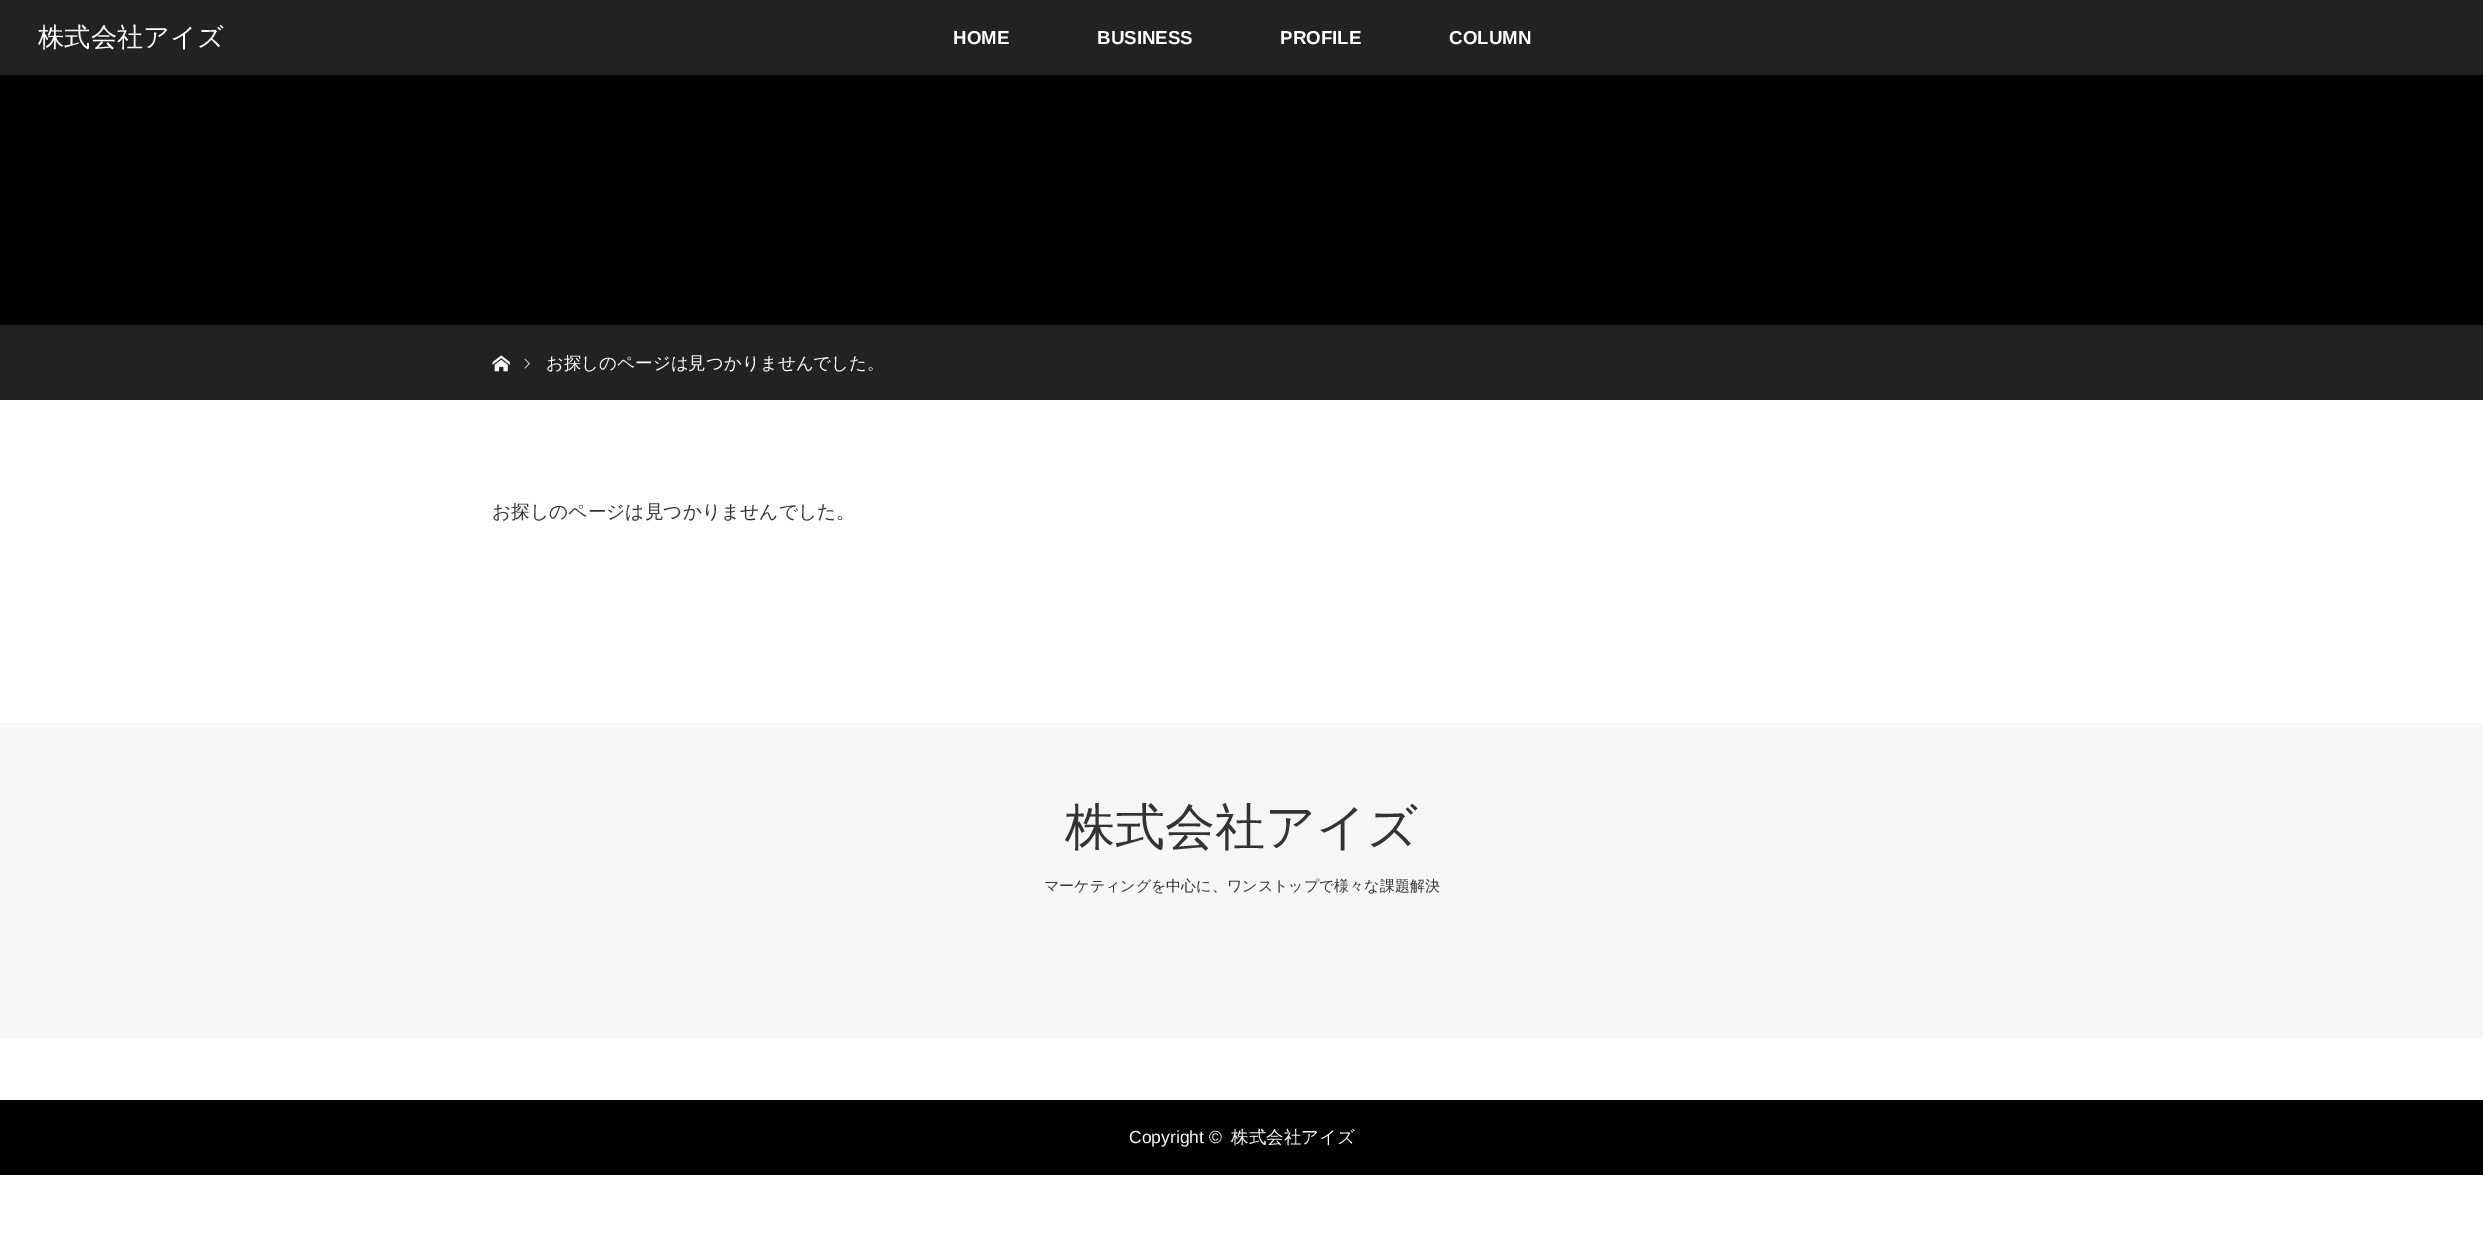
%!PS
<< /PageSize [2483 1243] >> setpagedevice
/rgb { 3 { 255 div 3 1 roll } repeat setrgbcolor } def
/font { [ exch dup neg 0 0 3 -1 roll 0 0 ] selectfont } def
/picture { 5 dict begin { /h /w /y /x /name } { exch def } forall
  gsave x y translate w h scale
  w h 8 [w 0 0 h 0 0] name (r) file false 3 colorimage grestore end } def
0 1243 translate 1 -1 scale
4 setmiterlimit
255 255 255 rgb
0 0 2483 1243 rectfill
[
  [0 0 2483 75 34 34 34]
  [0 75 2483 250 0 0 0]
  [0 325 2483 75 34 34 34]
] { aload pop rgb rectfill } forall
(img/1.rgb) 492 355 18 17 picture
(img/2.rgb) 524 358 6 11 picture
245 247 246 rgb
0 723 2483 315 rectfill
0 0 0 rgb
0 1100 2483 75 rectfill
/WenQuanYiZenHei-Medium 26.25 font
255 255 255 rgb
38 46 moveto (株式会社アイズ) show
/LiberationSans-Bold 18.75 font
[
  [(HOME) 953 44]
  [(BUSINESS) 1097 44]
  [(PROFILE) 1280 44]
  [(COLUMN) 1449 44]
] { aload pop moveto show } forall
/WenQuanYiZenHei-Medium 17.5 font
546 369 moveto (お探しのページは見つかりませんでした。) show
/WenQuanYiZenHei-Medium 18.75 font
51 51 51 rgb
492 518 moveto (お探しのページは見つかりませんでした。) show
/WenQuanYiZenHei-Medium 50 font
1065 844 moveto (株式会社アイズ) show
/WenQuanYiZenHei-Medium 15 font
1044 891 moveto (マーケティングを中心に、ワンストップで様々な課題解決) show
/LiberationSans-Regular 17.5 font
255 255 255 rgb
1129 1143 moveto (Copyright ©) show
/WenQuanYiZenHei-Medium 17.5 font
1231 1143 moveto (株式会社アイズ) show
showpage
